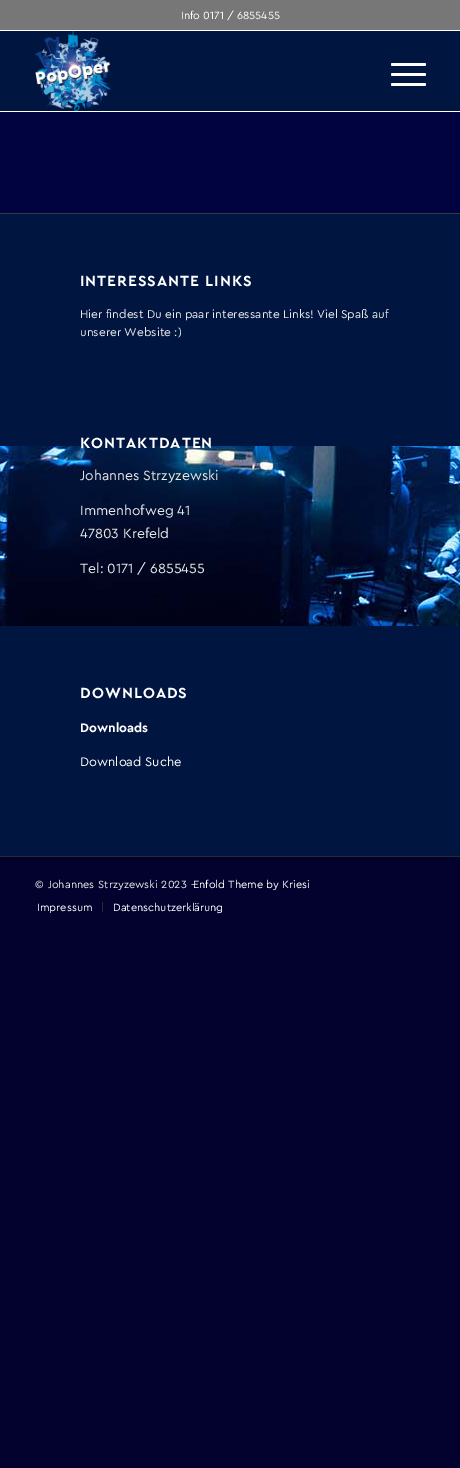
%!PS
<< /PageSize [460 1468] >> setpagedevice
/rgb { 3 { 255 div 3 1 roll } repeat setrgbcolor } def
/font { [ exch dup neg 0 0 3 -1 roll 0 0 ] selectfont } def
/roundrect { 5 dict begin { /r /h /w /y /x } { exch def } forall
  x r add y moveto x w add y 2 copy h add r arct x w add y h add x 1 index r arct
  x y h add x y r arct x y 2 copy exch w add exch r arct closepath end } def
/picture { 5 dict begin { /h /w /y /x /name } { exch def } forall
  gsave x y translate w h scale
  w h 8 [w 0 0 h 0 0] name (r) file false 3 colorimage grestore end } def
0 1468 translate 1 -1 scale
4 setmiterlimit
3 2 46 rgb
0 0 460 1468 rectfill
[
  [0 0 460 30 119 119 119]
  [0 30 460 1 255 255 255]
  [0 31 460 80 0 21 64]
  [0 111 460 1 255 255 255]
] { aload pop rgb rectfill } forall
(img/1.rgb) 35 31 76 80 picture
391 73 35 3 1.5 roundrect fill
391 63 35 3 1.5 roundrect fill
391 83 35 3 1.5 roundrect fill
0 21 64 rgb
0 214 460 642 rectfill
1 2 64 rgb
0 112 460 101 rectfill
(img/2.rgb) 0 446 460 180 picture
[
  [0 213 460 1 53 56 60]
  [0 856 460 1 40 43 46]
  [102 902 1 10 40 43 46]
] { aload pop rgb rectfill } forall
/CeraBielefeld-Regular 11 font
255 255 255 rgb
181 19 moveto (Info 0171 / 6855455) show
/CeraBielefeld-Bold 15.4 font
80 286 moveto 1 0 (INTERESSANTE LINKS) ashow
/CeraBielefeld-Regular 11.9 font
232 232 232 rgb
80 318 moveto (Hier findest Du ein paar interessante Links! Viel Spaß auf) show
80 336 moveto (unserer Website :\)) show
/CeraBielefeld-Bold 15.4 font
255 255 255 rgb
80 448 moveto 1 0 (KONTAKTDATEN) ashow
/CeraBielefeld-Regular 14 font
232 232 232 rgb
[
  [(Johannes Strzyzewski) 80 480]
  [(Immenhofweg 41) 80 515]
  [(47803 Krefeld) 80 538]
  [(Tel: 0171 / 6855455) 80 573]
] { aload pop moveto show } forall
/CeraBielefeld-Bold 15.4 font
255 255 255 rgb
80 698 moveto 1 0 (DOWNLOADS) ashow
/CeraBielefeld-Bold 13 font
80 732 moveto (Downloads) show
/CeraBielefeld-Regular 13 font
80 766 moveto (Download Suche) show
/CeraBielefeld-Regular 11 font
232 232 232 rgb
35 888 moveto 1 0 32 (© Johannes Strzyzewski 2023 -) widthshow
255 255 255 rgb
[
  [(Enfold Theme by Kriesi) 193 888]
  [(Impressum) 37 911]
  [(Datenschutzerklärung) 113 911]
] { aload pop moveto show } forall
showpage
